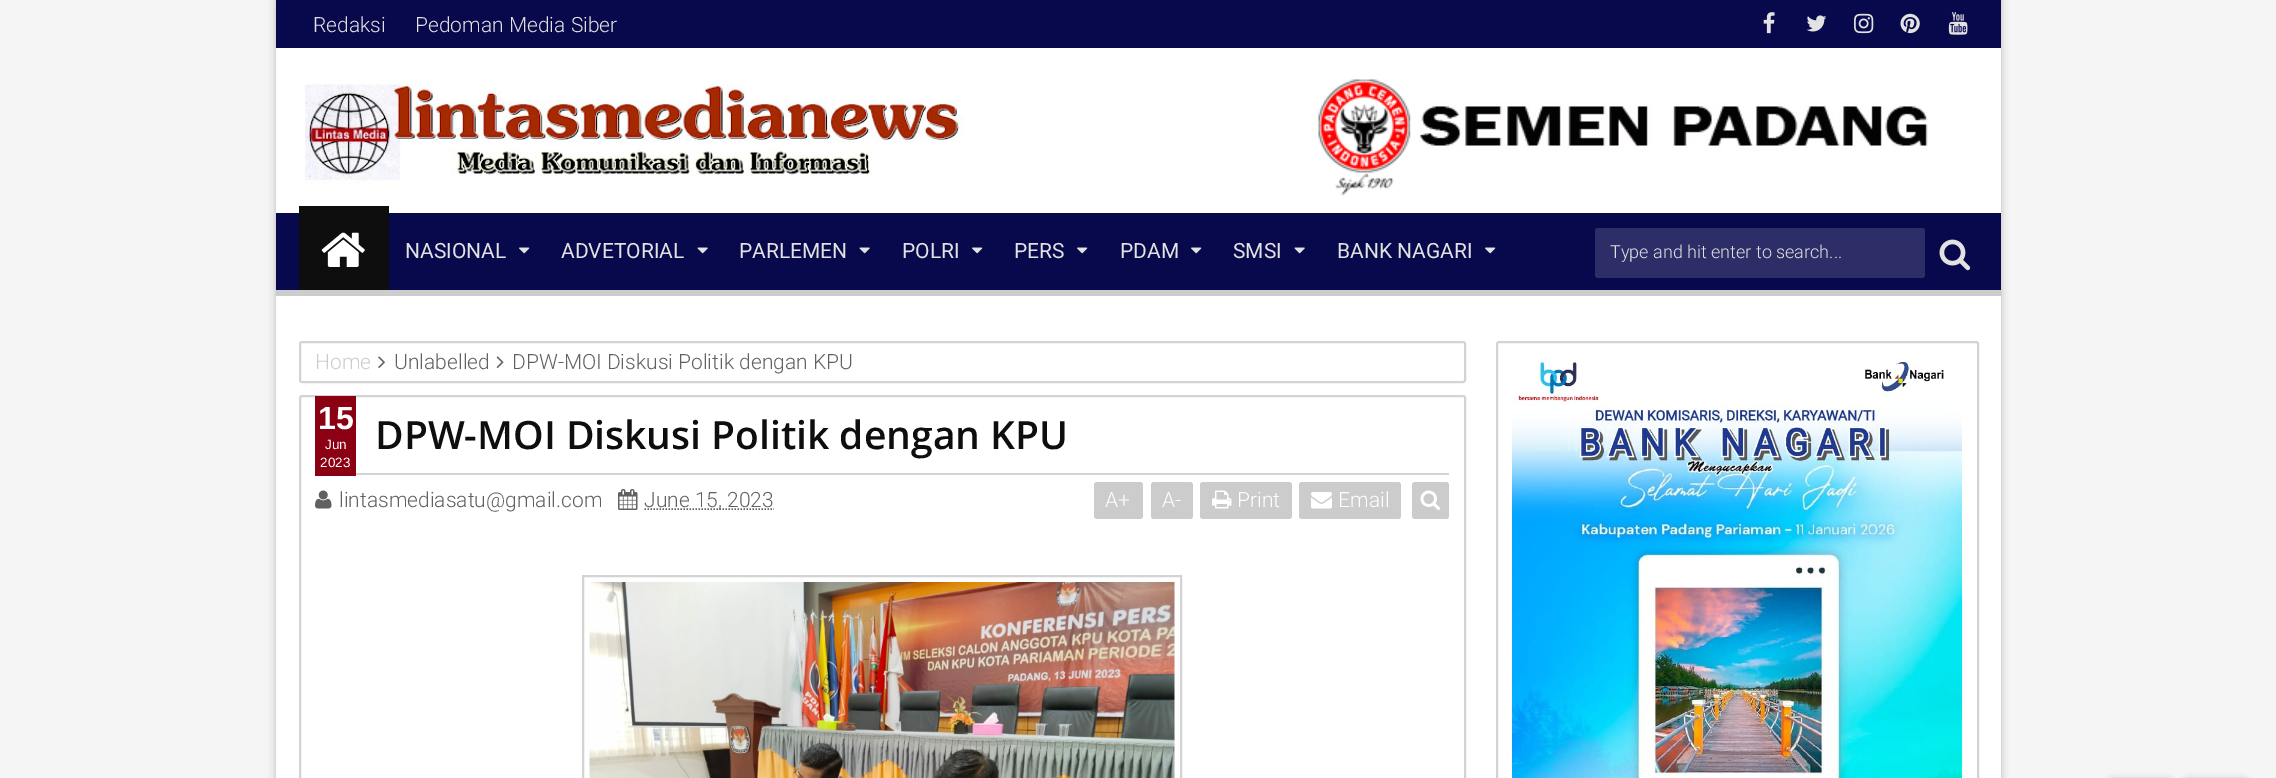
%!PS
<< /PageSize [2276 778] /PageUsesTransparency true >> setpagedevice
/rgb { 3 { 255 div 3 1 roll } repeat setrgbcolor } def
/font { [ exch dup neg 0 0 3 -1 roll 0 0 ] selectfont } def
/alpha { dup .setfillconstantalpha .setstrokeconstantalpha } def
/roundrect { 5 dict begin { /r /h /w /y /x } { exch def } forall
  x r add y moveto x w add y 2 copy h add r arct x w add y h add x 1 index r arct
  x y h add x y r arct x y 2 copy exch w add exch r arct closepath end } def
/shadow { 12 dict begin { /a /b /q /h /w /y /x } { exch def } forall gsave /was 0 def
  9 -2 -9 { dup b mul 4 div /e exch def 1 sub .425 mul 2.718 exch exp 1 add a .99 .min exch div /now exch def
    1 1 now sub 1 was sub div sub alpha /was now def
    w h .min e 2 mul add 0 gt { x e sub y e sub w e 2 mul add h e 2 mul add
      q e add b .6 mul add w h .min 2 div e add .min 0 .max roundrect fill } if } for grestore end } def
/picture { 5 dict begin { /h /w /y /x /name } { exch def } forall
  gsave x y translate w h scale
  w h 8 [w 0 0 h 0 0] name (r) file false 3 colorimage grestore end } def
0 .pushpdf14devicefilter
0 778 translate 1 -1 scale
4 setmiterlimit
245 245 245 rgb
0 0 2276 778 rectfill
0 0 0 rgb
276 0 1725 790 0 4 0.25 shadow
255 255 255 rgb
276 48 1725 730 rectfill
8 8 76 rgb
276 0 1725 48 rectfill
(img/1.rgb) 1763 12 12 22 picture
(img/2.rgb) 1806 15 21 17 picture
(img/3.rgb) 1854 13 20 21 picture
(img/4.rgb) 1900 13 20 21 picture
(img/5.rgb) 1948 12 20 23 picture
(img/6.rgb) 305 84 660 100 picture
(img/7.rgb) 1318 79 610 117 picture
[
  [276 213 1725 77 8 8 76]
  [276 290 1725 6 204 204 204]
  [299 206 90 84 14 14 14]
] { aload pop rgb rectfill } forall
(img/8.rgb) 321 232 44 35 picture
(img/9.rgb) 519 247 11 7 picture
(img/10.rgb) 697 247 11 7 picture
(img/10.rgb) 859 247 11 7 picture
(img/9.rgb) 972 247 11 7 picture
(img/9.rgb) 1077 247 11 7 picture
(img/9.rgb) 1191 247 11 7 picture
(img/10.rgb) 1294 247 11 7 picture
(img/9.rgb) 1485 247 11 7 picture
45 45 103 rgb
1595 228 330 50 3 roundrect fill
(img/11.rgb) 1939 239 32 32 picture
211 211 211 rgb
2 setlinewidth
300 342 1165 40 2 roundrect stroke
(img/12.rgb) 378 356 7 12 picture
(img/13.rgb) 496 356 8 12 picture
300 396 1165 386 2 roundrect stroke
140 0 20 rgb
315 396 41 80 rectfill
211 211 211 rgb
356 473 1093 2 rectfill
(img/14.rgb) 315 490 17 19 picture
(img/15.rgb) 618 489 20 21 picture
97 97 97 rgb
1.5 setlinewidth
[1.5 1.5] 0 setdash
644.5 509 moveto 774 509 lineto stroke
204 204 204 rgb
1094 482 49 37 3 roundrect fill
1151 482 42 37 3 roundrect fill
1200 482 92 37 3 roundrect fill
(img/16.rgb) 1212 490 20 19 picture
1299 482 102 37 3 roundrect fill
(img/17.rgb) 1311 492 21 17 picture
1412 482 37 37 3 roundrect fill
(img/18.rgb) 1420 490 20 20 picture
211 211 211 rgb
2 setlinewidth
[] 0 setdash
583 576 598 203 rectstroke
(img/19.rgb) 589 582 586 196 picture
1497 342 481 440 2 roundrect stroke
(img/20.rgb) 1512 357 450 421 picture
0 0 0 rgb
2109 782 63 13 5 4 0.5 shadow
2184 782 63 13 5 4 0.5 shadow
/Roboto-Light 21 font
226 226 226 rgb
313 32 moveto (Redaksi) show
415 32 moveto (Pedoman Media Siber) show
/Roboto-Regular 21 font
[
  [(NASIONAL) 405 258]
  [(ADVETORIAL) 561 258]
  [(PARLEMEN) 739 258]
  [(POLRI) 902 258]
  [(PERS) 1014 258]
  [(PDAM) 1120 258]
  [(SMSI) 1233 258]
  [(BANK NAGARI) 1337 258]
] { aload pop moveto show } forall
/Roboto-Light 18 font
1610 258 moveto (Type and hit enter to search...) show
/Roboto-Light 21 font
204 204 204 rgb
315 369 moveto (Home) show
97 97 97 rgb
394 369 moveto (Unlabelled) show
512 369 moveto (DPW-MOI Diskusi Politik dengan KPU) show
/LiberationSans-Bold 32 font
255 255 255 rgb
318 429 moveto (15) show
/LiberationSans-Regular 13.5 font
325 449 moveto (Jun) show
320 467 moveto (2023) show
/OpenSans-SemiBold 39 font
14 14 14 rgb
375 449 moveto (DPW-MOI Diskusi Politik dengan KPU) show
/Roboto-Light 21 font
97 97 97 rgb
339 507 moveto (lintasmediasatu@gmail.com) show
644 507 moveto (June 15, 2023) show
255 255 255 rgb
[
  [(A+) 1105 507]
  [(A-) 1162 507]
  [(Print) 1237 507]
  [(Email) 1338 507]
] { aload pop moveto show } forall
.poppdf14devicefilter showpage
